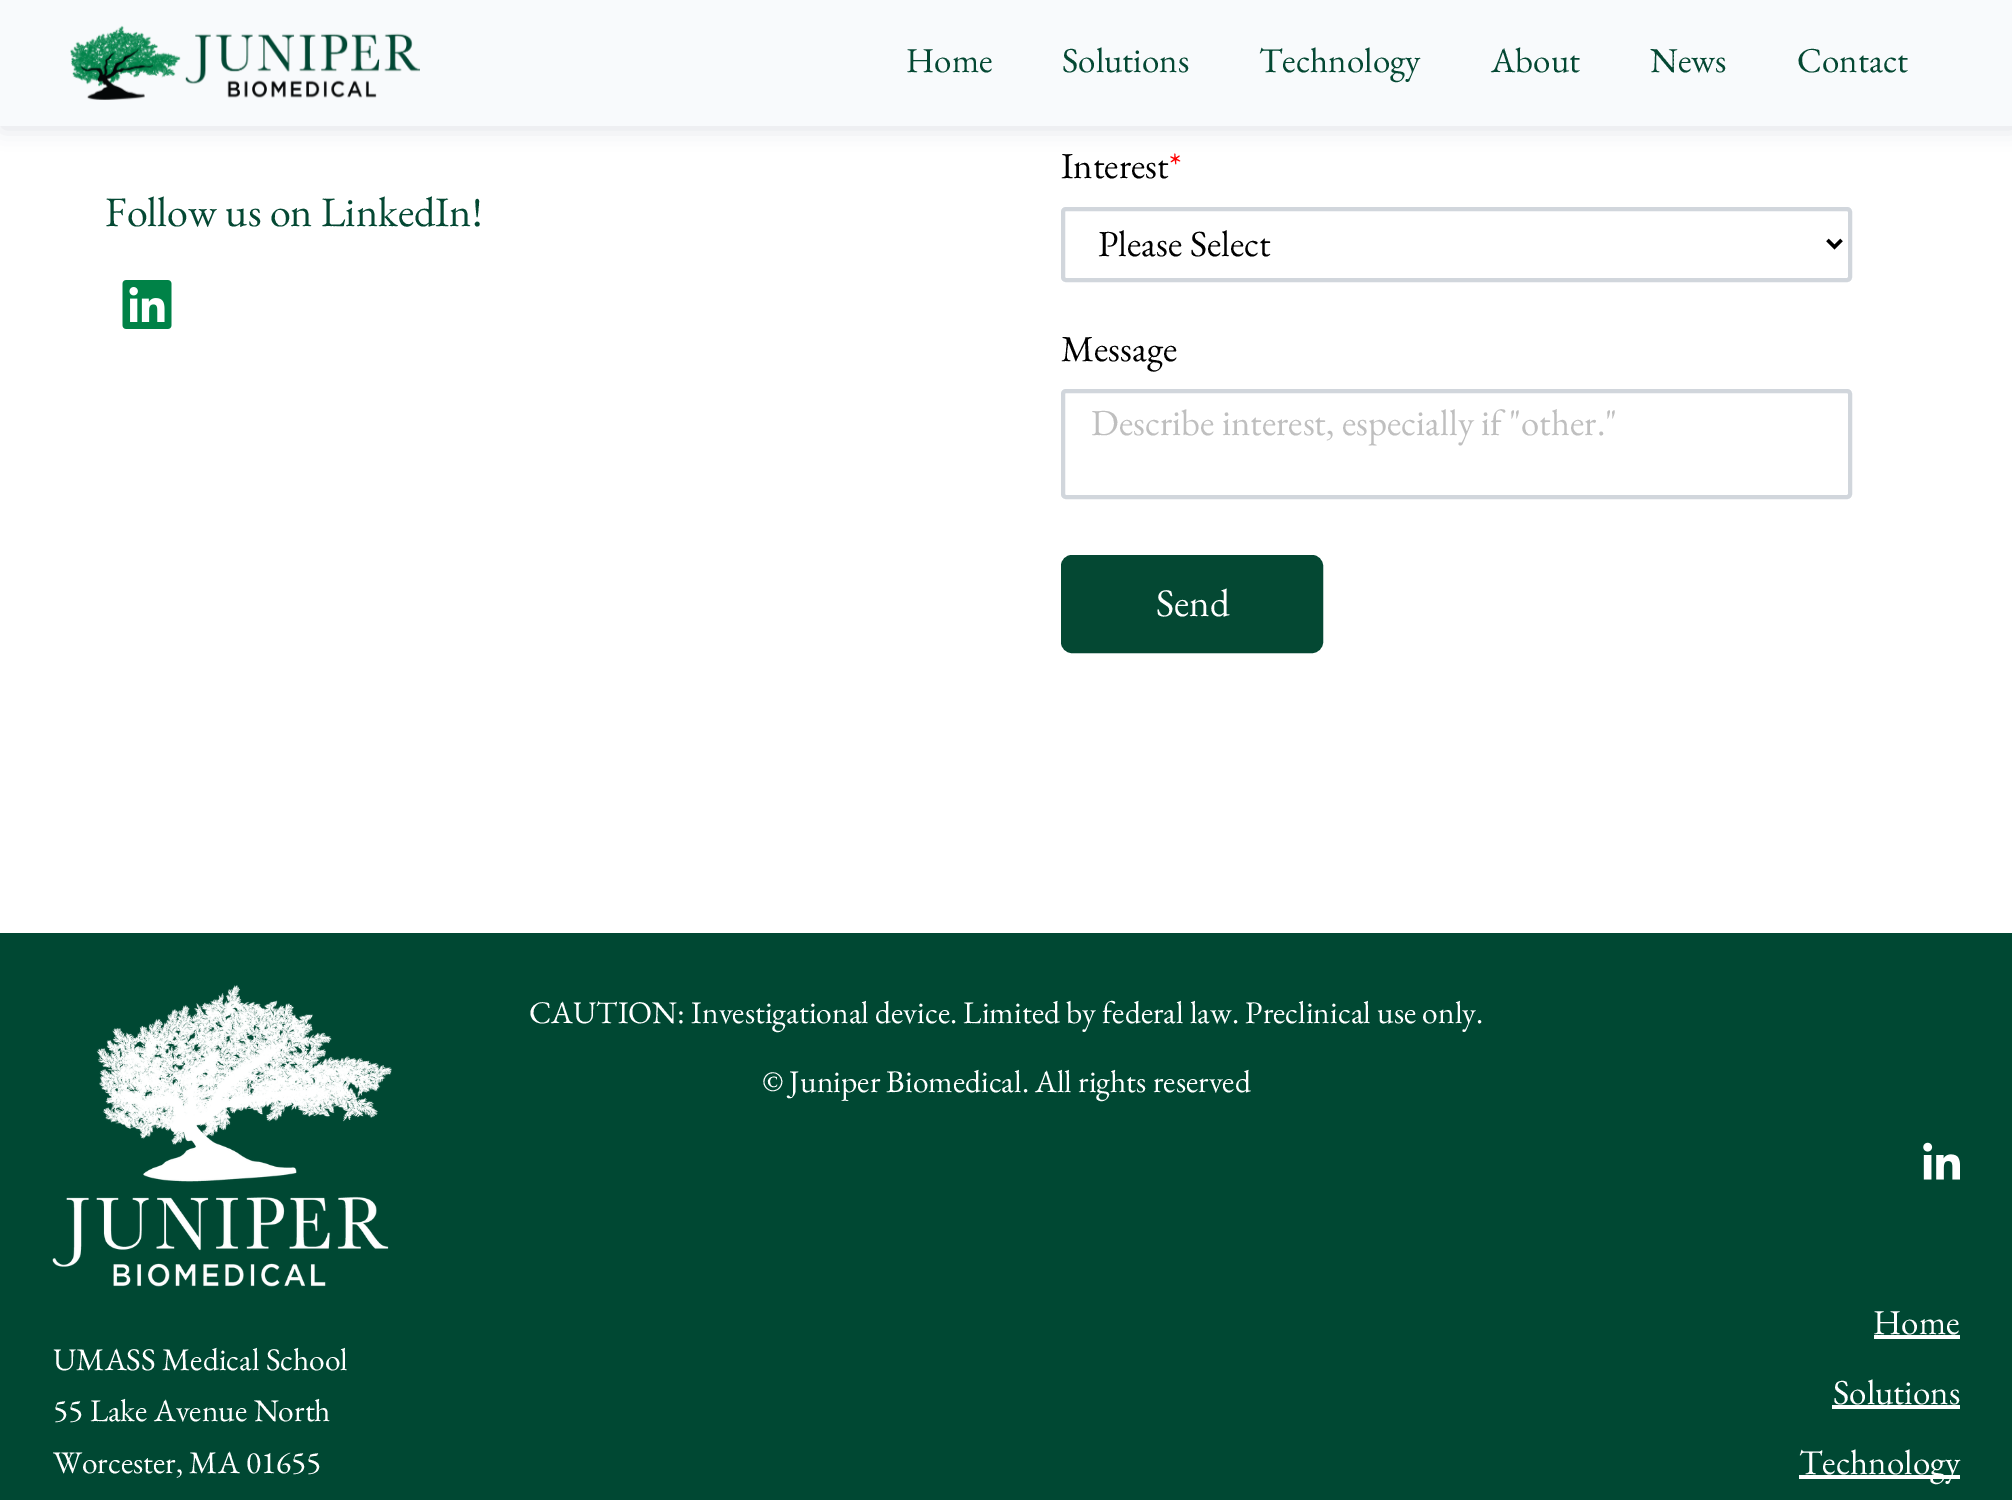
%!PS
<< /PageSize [2012 1500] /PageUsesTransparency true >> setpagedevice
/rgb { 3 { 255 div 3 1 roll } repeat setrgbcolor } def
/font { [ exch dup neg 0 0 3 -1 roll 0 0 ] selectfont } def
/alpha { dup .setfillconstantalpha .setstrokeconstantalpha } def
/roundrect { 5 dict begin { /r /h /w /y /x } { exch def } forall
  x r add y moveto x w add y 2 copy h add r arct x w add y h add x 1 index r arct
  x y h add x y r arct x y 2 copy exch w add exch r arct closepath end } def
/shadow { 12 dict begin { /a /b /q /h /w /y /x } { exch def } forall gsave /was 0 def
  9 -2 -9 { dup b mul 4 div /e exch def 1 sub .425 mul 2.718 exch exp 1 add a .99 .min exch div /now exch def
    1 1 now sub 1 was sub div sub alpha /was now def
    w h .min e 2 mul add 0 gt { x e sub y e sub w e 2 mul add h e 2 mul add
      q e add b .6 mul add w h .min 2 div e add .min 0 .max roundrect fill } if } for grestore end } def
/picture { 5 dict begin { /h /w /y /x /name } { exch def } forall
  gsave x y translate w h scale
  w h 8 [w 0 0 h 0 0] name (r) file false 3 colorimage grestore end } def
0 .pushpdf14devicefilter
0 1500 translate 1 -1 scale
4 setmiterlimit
255 255 255 rgb
0 0 2012 1500 rectfill
39 55 74 rgb
2 2 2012 126 0 10.5 0.15 shadow
248 250 252 rgb
0 0 2012 126 rectfill
(img/1.rgb) 70 25 350 75 picture
(img/2.rgb) 122 280 50 49 picture
209 214 220 rgb
4 setlinewidth
1063 209 787 71 3 roundrect stroke
0 0 0 rgb
3.5 setlinewidth
1827.5 240 moveto 1834.5 247 lineto 1841.5 240 lineto stroke
209 214 220 rgb
4 setlinewidth
1063 391 787 106 3 roundrect stroke
4 72 51 rgb
1062 556 260 96 10 roundrect gsave fill grestore
2 setlinewidth
stroke
0 72 51 rgb
0 933 2012 567 rectfill
(img/3.rgb) 52 985 340 302 picture
(img/4.rgb) 1923 1142 37 38 picture
[
  [1874 1335 86 4 255 255 255]
  [1832 1405 128 4 255 255 255]
  [1799 1475 161 4 255 255 255]
] { aload pop rgb rectfill } forall
/EBGaramond-Regular 35 font
4 72 51 rgb
[
  [(Home) 906 72]
  [(Solutions) 1062 72]
  [(Technology) 1259 72]
  [(About) 1491 72]
  [(News) 1650 72]
  [(Contact) 1797 72]
] { aload pop moveto show } forall
/EBGaramond-Regular 42 font
105 226 moveto (Follow us on LinkedIn!) show
/EBGaramond-Regular 36.75 font
0 0 0 rgb
1061 178 moveto (Interest) show
255 0 0 rgb
1169 178 moveto (*) show
0 0 0 rgb
1098 256 moveto (Please Select) show
1061 361 moveto (Message) show
191 191 191 rgb
1091 435 moveto (Describe interest, especially if "other.") show
/EBGaramond-Regular 39 font
255 255 255 rgb
1156 616 moveto (Send) show
/EBGaramond-Regular 31.5 font
[
  [(CAUTION: Investigational device. Limited by federal law. Preclinical use only.) 529 1023]
  [(© Juniper Biomedical. All rights reserved) 762 1092]
  [(UMASS Medical School) 53 1370]
  [(55 Lake Avenue North) 53 1421]
  [(Worcester, MA 01655) 53 1473]
] { aload pop moveto show } forall
/EBGaramond-Regular 35 font
[
  [(Home) 1873 1334]
  [(Solutions) 1833 1404]
  [(Technology) 1799 1474]
] { aload pop moveto show } forall
.poppdf14devicefilter showpage
